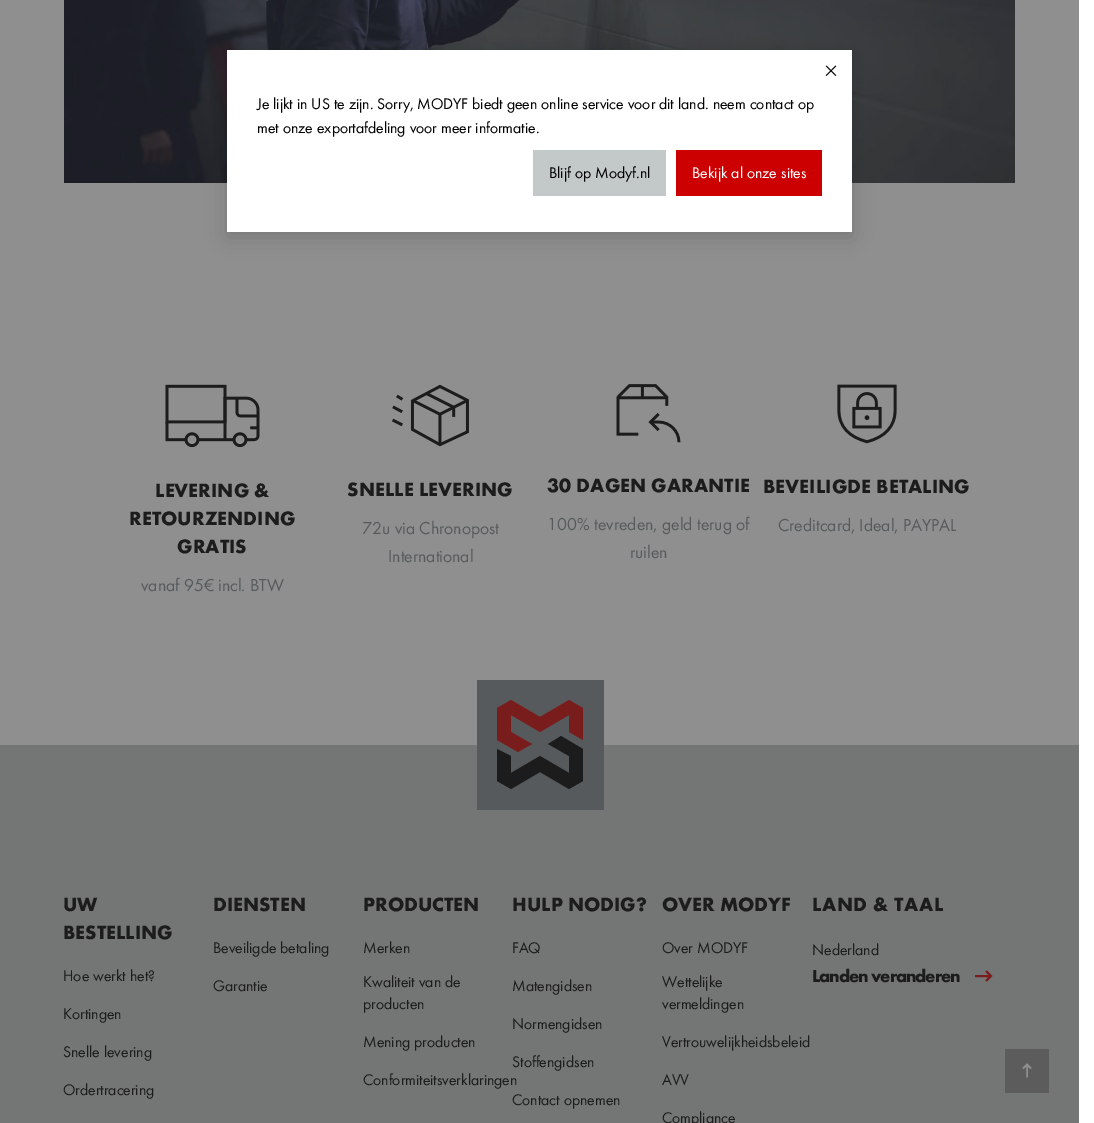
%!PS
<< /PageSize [1094 1123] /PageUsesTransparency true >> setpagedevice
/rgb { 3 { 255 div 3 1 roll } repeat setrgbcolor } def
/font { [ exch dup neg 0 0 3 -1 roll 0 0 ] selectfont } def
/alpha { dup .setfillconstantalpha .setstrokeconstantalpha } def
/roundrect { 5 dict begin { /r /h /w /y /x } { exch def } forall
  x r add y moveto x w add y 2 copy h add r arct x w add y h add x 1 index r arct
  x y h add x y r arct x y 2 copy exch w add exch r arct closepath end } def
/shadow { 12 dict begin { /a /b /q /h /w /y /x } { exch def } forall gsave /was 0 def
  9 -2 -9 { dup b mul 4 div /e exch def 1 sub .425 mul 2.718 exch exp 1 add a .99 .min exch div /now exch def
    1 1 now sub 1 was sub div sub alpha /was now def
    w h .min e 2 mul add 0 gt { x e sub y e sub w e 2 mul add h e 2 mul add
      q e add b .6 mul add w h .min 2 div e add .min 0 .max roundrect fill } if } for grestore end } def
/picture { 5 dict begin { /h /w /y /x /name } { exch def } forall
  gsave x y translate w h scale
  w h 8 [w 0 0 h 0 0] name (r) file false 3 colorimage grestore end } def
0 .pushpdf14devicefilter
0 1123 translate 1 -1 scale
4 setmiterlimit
255 255 255 rgb
0 0 1094 1123 rectfill
143 143 143 rgb
0 0 1079 745 rectfill
(img/2.rgb) 64 0 951 183 picture
0 0 0 rgb
227 55 625 182 0 10 0.16 shadow
255 255 255 rgb
227 50 625 182 rectfill
(img/1.rgb) 825 65 12 11 picture
[
  [533 150 133 46 195 200 200]
  [676 150 146 46 204 0 0]
  [0 745 1079 378 116 118 118]
  [1005 1049 44 44 92 92 92]
] { aload pop rgb rectfill } forall
143 143 143 rgb
1.6 setlinewidth
1027 1077.5 moveto 1027 1066 lineto 1031 1068.5 moveto 1027 1064.5 lineto 1023 1068.5 lineto stroke
(img/3.rgb) 165 384 95 64 picture
(img/4.rgb) 392 384 77 63 picture
(img/5.rgb) 616 384 65 59 picture
(img/6.rgb) 837 384 60 60 picture
86 90 92 rgb
477 680 127 130 rectfill
120 28 28 rgb
583 740 moveto 583 708 lineto 569 700 lineto 540 717 lineto 511 700 lineto 497 708 lineto 497 740 lineto 518 752 lineto 532 744 lineto 511 732 lineto 511 715 lineto 540 732 lineto 569 715 lineto 569 732 lineto closepath eofill
28 28 28 rgb
497 749 moveto 497 781 lineto 511 789 lineto 540 772 lineto 569 789 lineto 583 781 lineto 583 749 lineto 561 736 lineto 548 744 lineto 569 756 lineto 569 773 lineto 540 756 lineto 511 773 lineto 511 756 lineto closepath eofill
120 28 28 rgb
2 setlinewidth
975 976 moveto 989 976 lineto 986 981 moveto 991 976 lineto 986 971 lineto stroke
/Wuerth-Regular 16 font
0 0 0 rgb
[
  [(Je lijkt in US te zijn. Sorry, MODYF biedt geen online service voor dit land. neem contact op) 257 109]
  [(met onze exportafdeling voor meer informatie.) 257 133]
  [(Blijf op Modyf.nl) 549 178]
] { aload pop moveto show } forall
255 255 255 rgb
692 178 moveto (Bekijk al onze sites) show
/Wuerth-Bold 20 font
28 28 28 rgb
155 497 moveto 0.1 0 (LEVERING &) ashow
129 525 moveto 0.1 0 (RETOURZENDING) ashow
177 553 moveto 0.1 0 (GRATIS) ashow
/Wuerth-Regular 18 font
86 90 92 rgb
141 591 moveto (vanaf 95€ incl. BTW) show
/Wuerth-Bold 20 font
28 28 28 rgb
347 496 moveto 0.1 0 (SNELLE LEVERING) ashow
/Wuerth-Regular 18 font
86 90 92 rgb
362 534 moveto (72u via Chronopost) show
388 562 moveto (International) show
/Wuerth-Bold 20 font
28 28 28 rgb
547 492 moveto 0.1 0 (30 DAGEN GARANTIE) ashow
/Wuerth-Regular 18 font
86 90 92 rgb
547 530 moveto (100% tevreden, geld terug of) show
630 558 moveto (ruilen) show
/Wuerth-Bold 20 font
28 28 28 rgb
763 493 moveto 0.1 0 (BEVEILIGDE BETALING) ashow
/Wuerth-Regular 18 font
86 90 92 rgb
778 531 moveto (Creditcard, Ideal, PAYPAL) show
/Wuerth-Bold 20 font
28 28 28 rgb
63 911 moveto (UW) show
63 939 moveto (BESTELLING) show
/Wuerth-Regular 16 font
[
  [(Hoe werkt het?) 63 981]
  [(Kortingen) 63 1019]
  [(Snelle levering) 63 1057]
  [(Ordertracering) 63 1095]
] { aload pop moveto show } forall
/Wuerth-Bold 20 font
213 911 moveto (DIENSTEN) show
/Wuerth-Regular 16 font
213 953 moveto (Beveiligde betaling) show
213 991 moveto (Garantie) show
/Wuerth-Bold 20 font
363 911 moveto (PRODUCTEN) show
/Wuerth-Regular 16 font
[
  [(Merken) 363 953]
  [(Kwaliteit van de) 363 987]
  [(producten) 363 1009]
  [(Mening producten) 363 1047]
  [(Conformiteitsverklaringen) 363 1085]
] { aload pop moveto show } forall
/Wuerth-Bold 20 font
512 911 moveto (HULP NODIG?) show
/Wuerth-Regular 16 font
[
  [(FAQ) 512 953]
  [(Matengidsen) 512 991]
  [(Normengidsen) 512 1029]
  [(Stoffengidsen) 512 1067]
  [(Contact opnemen) 512 1105]
] { aload pop moveto show } forall
/Wuerth-Bold 20 font
662 911 moveto (OVER MODYF) show
/Wuerth-Regular 16 font
[
  [(Over MODYF) 662 953]
  [(Wettelijke) 662 987]
  [(vermeldingen) 662 1009]
  [(Vertrouwelijkheidsbeleid) 662 1047]
  [(AVV) 662 1085]
  [(Compliance) 662 1123]
] { aload pop moveto show } forall
/Wuerth-Bold 20 font
812 911 moveto 0.5 0 (LAND & TAAL) ashow
/Wuerth-Regular 16 font
812 955 moveto (Nederland) show
/Wuerth-Bold 18 font
812 982 moveto -1.1 0 (Landen veranderen) ashow
.poppdf14devicefilter showpage
